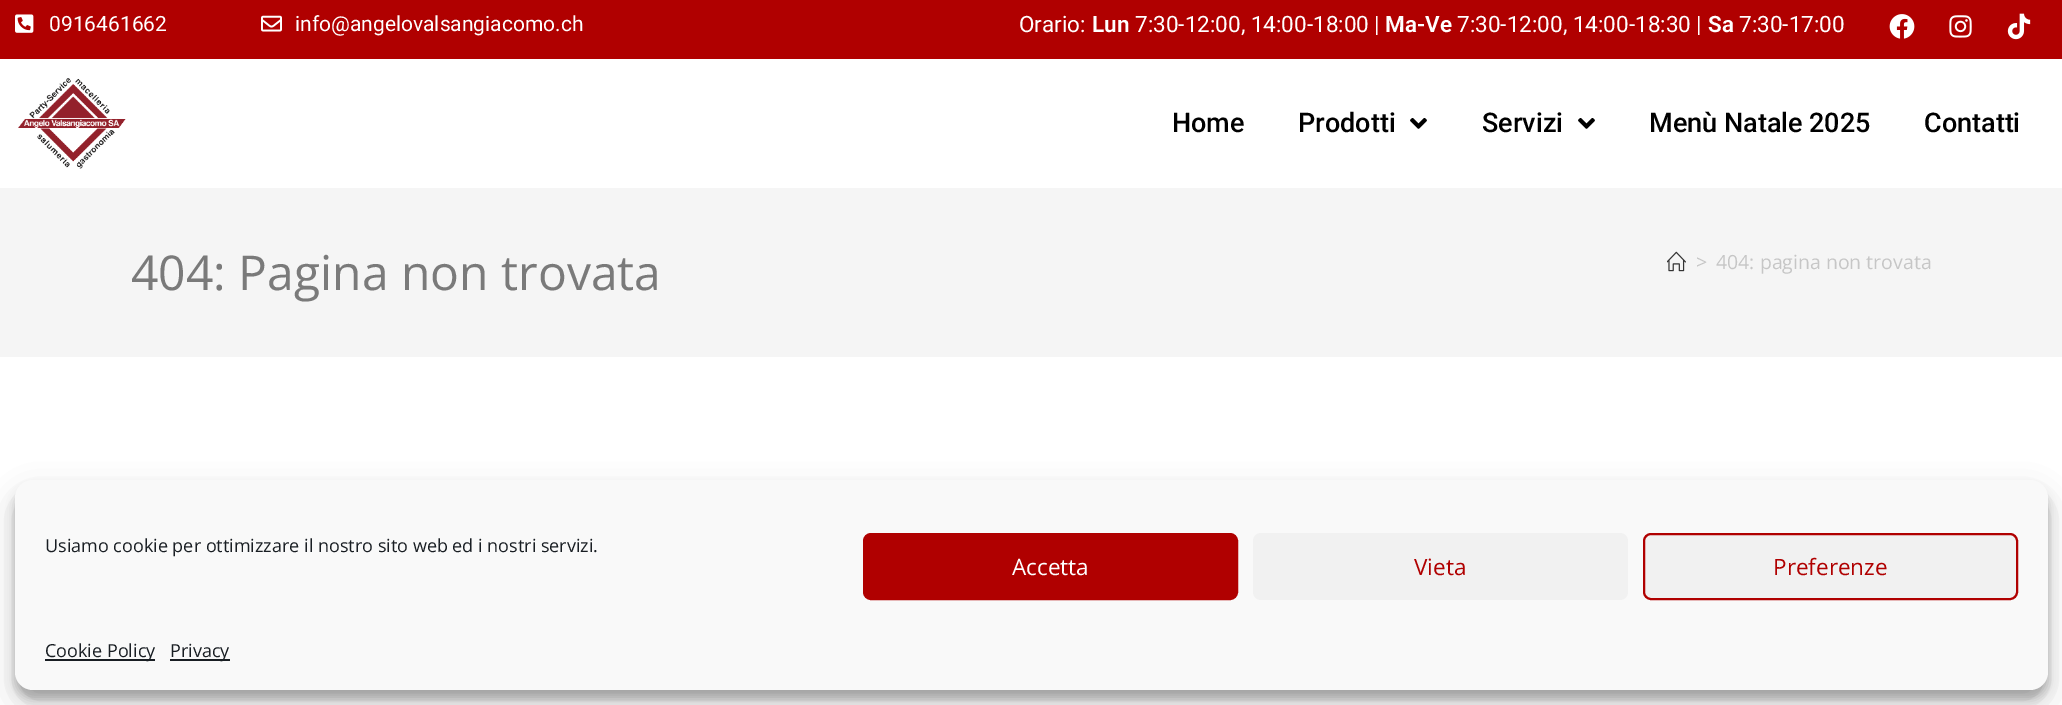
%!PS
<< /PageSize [2062 705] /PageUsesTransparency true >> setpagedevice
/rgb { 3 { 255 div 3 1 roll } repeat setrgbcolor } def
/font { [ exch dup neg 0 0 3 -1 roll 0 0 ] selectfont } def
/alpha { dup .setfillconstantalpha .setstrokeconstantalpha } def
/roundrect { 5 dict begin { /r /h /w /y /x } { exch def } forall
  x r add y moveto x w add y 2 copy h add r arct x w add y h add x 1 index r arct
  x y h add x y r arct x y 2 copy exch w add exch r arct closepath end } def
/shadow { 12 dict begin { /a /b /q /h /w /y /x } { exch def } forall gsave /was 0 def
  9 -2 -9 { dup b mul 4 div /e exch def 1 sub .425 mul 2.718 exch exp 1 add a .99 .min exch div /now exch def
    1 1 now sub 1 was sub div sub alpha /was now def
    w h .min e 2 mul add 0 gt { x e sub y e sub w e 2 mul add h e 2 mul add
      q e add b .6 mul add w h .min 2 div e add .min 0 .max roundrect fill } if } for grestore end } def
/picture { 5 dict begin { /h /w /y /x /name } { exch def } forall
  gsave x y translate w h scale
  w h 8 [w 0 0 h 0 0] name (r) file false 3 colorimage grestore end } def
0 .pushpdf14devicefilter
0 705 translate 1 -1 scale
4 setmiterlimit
255 255 255 rgb
0 0 2062 705 rectfill
176 0 0 rgb
0 0 2062 59 rectfill
(img/1.rgb) 15 14 19 19 picture
(img/2.rgb) 261 15 21 17 picture
(img/3.rgb) 1889 14 26 25 picture
(img/4.rgb) 1949 15 23 23 picture
(img/5.rgb) 2007 13 24 27 picture
(img/6.rgb) 18 78 108 91 picture
(img/7.rgb) 1410 118 17 11 picture
(img/7.rgb) 1578 118 17 11 picture
245 245 245 rgb
0 188 2062 169 rectfill
(img/8.rgb) 1667 251 19 21 picture
0 0 0 rgb
15 489 2033 210 18 4.5 0.23 shadow
15 495 2033 210 18 15 0.19 shadow
249 249 249 rgb
15 480 2033 210 18 roundrect fill
176 0 0 rgb
864 534 373 65 7 roundrect gsave fill grestore
2 setlinewidth
stroke
241 241 241 rgb
1253 533 375 67 8 roundrect fill
1644 534 373 65 7 roundrect gsave fill grestore
176 0 0 rgb
stroke
25 30 35 rgb
45 659 110 2 rectfill
170 659 60 2 rectfill
/Roboto-Regular 21 font
255 255 255 rgb
49 31 moveto (0916461662) show
295 31 moveto (info@angelovalsangiacomo.ch) show
/Roboto-Regular 22.5 font
1019 32 moveto (Orario:) show
/Roboto-SemiBold 22.5 font
1092 32 moveto (Lun) show
/Roboto-Regular 22.5 font
1135 32 moveto (7:30-12:00, 14:00-18:00 |) show
/Roboto-SemiBold 22.5 font
1385 32 moveto (Ma-Ve) show
/Roboto-Regular 22.5 font
1457 32 moveto (7:30-12:00, 14:00-18:30 |) show
/Roboto-SemiBold 22.5 font
1708 32 moveto (Sa) show
/Roboto-Regular 22.5 font
1739 32 moveto (7:30-17:00) show
/Roboto-Medium 27 font
0 0 0 rgb
[
  [(Home) 1172 132]
  [(Prodotti) 1298 132]
  [(Servizi) 1482 132]
  [(Menù Natale 2025) 1649 132]
  [(Contatti) 1924 132]
] { aload pop moveto show } forall
/OpenSans-Regular 48 font
122 122 122 rgb
131 290 moveto (404: Pagina non trovata) show
/OpenSans-Regular 19.5 font
198 198 198 rgb
1696 269 moveto (>) show
1716 269 moveto (404: pagina non trovata) show
/OpenSans-Regular 18 font
25 30 35 rgb
45 552 moveto (Usiamo cookie per ottimizzare il nostro sito web ed i nostri servizi.) show
/OpenSans-Regular 22.5 font
255 255 255 rgb
1012 575 moveto (Accetta) show
176 0 0 rgb
1414 575 moveto (Vieta) show
1773 575 moveto (Preferenze) show
/OpenSans-Regular 18 font
25 30 35 rgb
45 657 moveto (Cookie Policy) show
170 657 moveto (Privacy) show
.poppdf14devicefilter showpage
